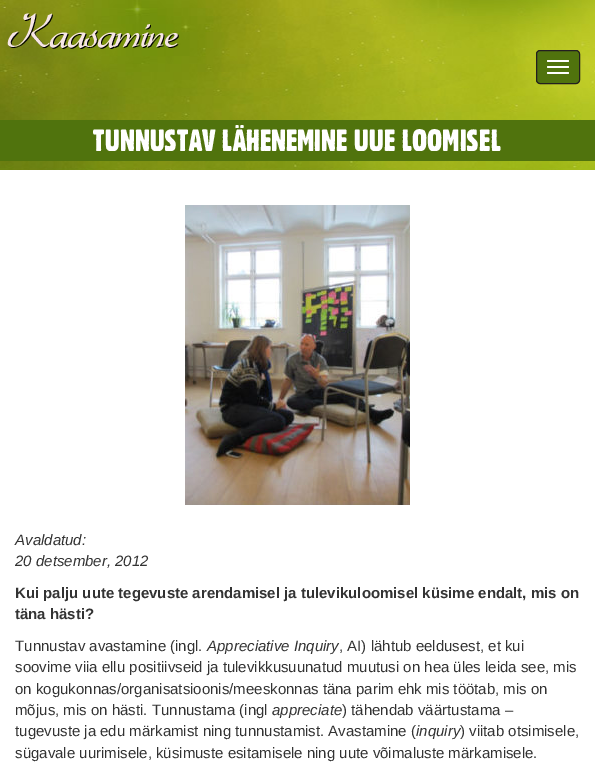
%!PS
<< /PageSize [595 765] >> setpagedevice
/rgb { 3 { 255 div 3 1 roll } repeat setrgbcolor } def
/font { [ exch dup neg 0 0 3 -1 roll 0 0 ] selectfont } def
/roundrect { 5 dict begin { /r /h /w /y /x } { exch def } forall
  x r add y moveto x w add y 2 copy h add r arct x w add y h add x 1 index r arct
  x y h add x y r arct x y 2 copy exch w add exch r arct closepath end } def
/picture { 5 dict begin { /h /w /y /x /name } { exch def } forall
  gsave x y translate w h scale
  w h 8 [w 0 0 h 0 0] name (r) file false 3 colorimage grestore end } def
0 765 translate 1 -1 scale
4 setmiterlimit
255 255 255 rgb
0 0 595 765 rectfill
(img/1.rgb) 0 0 595 170 picture
(img/2.rgb) 7 13 172 36 picture
80 115 13 rgb
536.5 50.5 43 33 3.5 roundrect gsave fill grestore
35 31 32 rgb
stroke
255 255 255 rgb
547 60 22 2 1 roundrect fill
547 66 22 2 1 roundrect fill
547 72 22 2 1 roundrect fill
80 115 13 rgb
0 120 595 31 rectfill
(img/3.rgb) 185 205 225 300 picture
/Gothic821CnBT-Regular 30 font
255 255 255 rgb
93 151 moveto (TUNNUSTAV LÄHENEMINE UUE LOOMISEL) show
80 115 13 rgb
0 151 595 10 rectfill
/LiberationSans-Italic 15 font
51 51 51 rgb
15 545 moveto (Avaldatud:) show
15 566 moveto (20 detsember, 2012) show
/LiberationSans-Bold 15 font
15 598 moveto (Kui palju uute tegevuste arendamisel ja tulevikuloomisel küsime endalt, mis on) show
15 619 moveto (täna hästi?) show
/LiberationSans-Regular 15 font
15 651 moveto (Tunnustav avastamine \(ingl.) show
/LiberationSans-Italic 15 font
207 651 moveto (Appreciative Inquiry) show
/LiberationSans-Regular 15 font
[
  [(, AI\) lähtub eeldusest, et kui) 339 651]
  [(soovime viia ellu positiivseid ja tulevikkusuunatud muutusi on hea üles leida see, mis) 15 672]
  [(on kogukonnas/organisatsioonis/meeskonnas täna parim ehk mis töötab, mis on) 15 694]
  [(mõjus, mis on hästi. Tunnustama \(ingl) 15 715]
] { aload pop moveto show } forall
/LiberationSans-Italic 15 font
272 715 moveto (appreciate) show
/LiberationSans-Regular 15 font
342 715 moveto (\) tähendab väärtustama –) show
15 736 moveto (tugevuste ja edu märkamist ning tunnustamist. Avastamine \() show
/LiberationSans-Italic 15 font
416 736 moveto (inquiry) show
/LiberationSans-Regular 15 font
460 736 moveto (\) viitab otsimisele,) show
15 758 moveto (sügavale uurimisele, küsimuste esitamisele ning uute võimaluste märkamisele.) show
showpage
